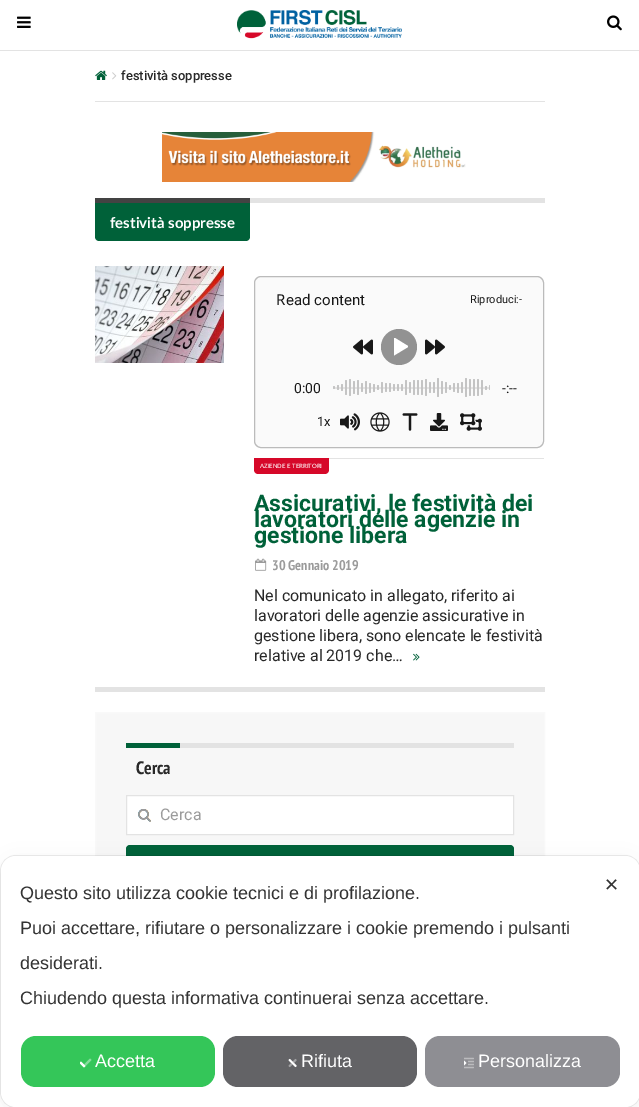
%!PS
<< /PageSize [639 1107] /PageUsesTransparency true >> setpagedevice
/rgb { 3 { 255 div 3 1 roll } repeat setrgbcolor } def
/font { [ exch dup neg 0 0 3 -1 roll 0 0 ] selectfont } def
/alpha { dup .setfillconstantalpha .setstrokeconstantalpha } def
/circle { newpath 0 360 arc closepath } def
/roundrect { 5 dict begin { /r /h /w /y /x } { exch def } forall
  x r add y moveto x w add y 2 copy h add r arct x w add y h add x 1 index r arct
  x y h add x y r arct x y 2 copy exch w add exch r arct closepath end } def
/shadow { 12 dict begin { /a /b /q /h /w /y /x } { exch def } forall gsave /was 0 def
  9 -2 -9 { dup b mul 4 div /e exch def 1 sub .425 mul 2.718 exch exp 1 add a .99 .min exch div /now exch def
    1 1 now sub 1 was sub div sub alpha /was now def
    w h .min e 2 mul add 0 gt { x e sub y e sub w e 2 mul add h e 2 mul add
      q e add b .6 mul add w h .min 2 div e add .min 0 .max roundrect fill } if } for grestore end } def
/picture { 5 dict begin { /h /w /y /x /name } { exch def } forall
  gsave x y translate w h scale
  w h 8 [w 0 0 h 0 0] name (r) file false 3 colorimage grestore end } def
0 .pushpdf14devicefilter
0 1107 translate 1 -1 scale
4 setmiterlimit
255 255 255 rgb
0 0 639 1107 rectfill
227 227 227 rgb
0 50 639 1 rectfill
(img/1.rgb) 17 16 14 12 picture
(img/2.rgb) 237 10 165 29 picture
(img/3.rgb) 607 15 15 16 picture
95 101 450 1 rectfill
(img/4.rgb) 95 70 12 10 picture
(img/5.rgb) 112 72 5 8 picture
(img/6.rgb) 162 132 304 50 picture
250 198 295 5 rectfill
0 97 57 rgb
95 198 moveto 250 198 lineto 250 237 lineto 250 239 248 241 246 241 curveto 99 241 lineto 97 241 95 239 95 237 curveto closepath fill
67 67 67 rgb
95 198 155 5 rectfill
(img/7.rgb) 95 266 129 97 picture
250 250 250 rgb
254.5 276.5 289 171 6.5 roundrect gsave fill grestore
187 187 187 rgb
stroke
(img/8.rgb) 353 339 20 16 picture
146 146 146 rgb
399 347 18 circle fill
255 255 255 rgb
408 347 moveto 394 355.5 lineto 394 338 lineto 395 338 lineto 408 346 lineto closepath fill
(img/9.rgb) 425 339 20 16 picture
228 227 227 rgb
333 387 157 2 rectfill
196 196 196 rgb
333 386 2 3 1 roundrect fill
337 385 2 5 1 roundrect fill
341 384 2 7 1 roundrect fill
345 380 2 15 1 roundrect fill
349 379 2 17 1 roundrect fill
353 381 2 13 1 roundrect fill
357 380 2 15 1 roundrect fill
361 383 2 9 1 roundrect fill
365 381 2 13 1 roundrect fill
369 383 2 10 1 roundrect fill
373 384 2 8 1 roundrect fill
377 385 2 5 1 roundrect fill
381 382 2 11 1 roundrect fill
385 383 2 9 1 roundrect fill
389 383 2 9 1 roundrect fill
393 384 2 7 1 roundrect fill
397 384 2 7 1 roundrect fill
401 384 2 7 1 roundrect fill
405 380 2 15 1 roundrect fill
409 382 2 11 1 roundrect fill
413 380 2 15 1 roundrect fill
417 380 2 15 1 roundrect fill
421 380 2 15 1 roundrect fill
425 379 2 17 1 roundrect fill
429 382 2 11 1 roundrect fill
433 382 2 11 1 roundrect fill
437 378 2 19 1 roundrect fill
441 381 2 13 1 roundrect fill
445 382 2 11 1 roundrect fill
449 385 2 5 1 roundrect fill
453 383 2 9 1 roundrect fill
457 383 2 10 1 roundrect fill
461 382 2 11 1 roundrect fill
465 378 2 19 1 roundrect fill
469 379 2 17 1 roundrect fill
473 379 2 17 1 roundrect fill
477 379 2 17 1 roundrect fill
481 380 2 15 1 roundrect fill
485 386 2 4 1 roundrect fill
490 385 moveto 490 390 lineto 489.5 390 489 389.5 489 389 curveto 489 386 lineto 489 385.5 489.5 385 490 385 curveto closepath fill
(img/10.rgb) 340 413 20 18 picture
(img/11.rgb) 370 412 20 20 picture
(img/12.rgb) 402 413 16 18 picture
(img/13.rgb) 430 413 18 18 picture
(img/14.rgb) 460 413 22 18 picture
227 227 227 rgb
329 458 215 1 rectfill
214 8 41 rgb
254 458 moveto 329 458 lineto 329 470 lineto 329 472 327 474 325 474 curveto 258 474 lineto 256 474 254 472 254 470 curveto closepath fill
(img/15.rgb) 255 558 12 13 picture
(img/16.rgb) 413 653 7 8 picture
227 227 227 rgb
95 687 450 5 rectfill
247 247 247 rgb
96 713 448 143 rectfill
249 249 249 rgb
95.5 712.5 449 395 rectstroke
[
  [180 743 334 5 227 227 227]
  [126 743 54 5 0 97 57]
  [127 796 386 38 255 255 255]
] { aload pop rgb rectfill } forall
(img/17.rgb) 138 809 13 13 picture
227 227 227 rgb
126.5 795.5 387 39 rectstroke
0 97 57 rgb
126 845 388 40 4 roundrect fill
0.08 alpha
0 0 0 rgb
0.5 855.5 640 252 15.5 roundrect stroke
1 alpha
1 862 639 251 15 12 0.05 shadow
255 255 255 rgb
1 856 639 251 15 roundrect fill
52 198 89 rgb
21 1036 194 51 15 roundrect fill
(img/18.rgb) 80 1058 12 10 picture
99 99 102 rgb
223 1036 194 51 15 roundrect fill
(img/19.rgb) 288 1058 9 10 picture
142 142 147 rgb
425 1036 195 51 15 roundrect fill
(img/20.rgb) 464 1057 10 12 picture
/Roboto-Medium 13 font
40 40 40 rgb
121 80 moveto (festività soppresse) show
/Lato-Bold 15 font
255 255 255 rgb
110 228 moveto (festività soppresse) show
/NotoSans-Regular 15 font
24 24 24 rgb
276 305 moveto (R) show
/Roboto-Regular 15 font
286 305 moveto (ead content) show
/Roboto-Regular 11 font
470 303 moveto (Riproduci:-) show
/Roboto-Regular 14 font
294 393 moveto (0:00) show
502 393 moveto (-:--) show
/Roboto-Regular 13 font
317 426 moveto (1x) show
/Lato-Medium 6 font
255 255 255 rgb
260 468 moveto (AZIENDE E TERRITORI) show
/Roboto-Bold 23 font
0 97 57 rgb
[
  [(Assicurativi, le festività dei) 254 511]
  [(lavoratori delle agenzie in) 254 527]
  [(gestione libera) 254 543]
] { aload pop moveto show } forall
/PTSansNarrow-Bold 14 font
155 155 155 rgb
272 570 moveto (30 Gennaio 2019) show
/Roboto-Regular 16 font
40 40 40 rgb
[
  [(Nel comunicato in allegato, riferito ai) 254 601]
  [(lavoratori delle agenzie assicurative in) 254 621]
  [(gestione libera, sono elencate le festività) 254 641]
  [(relative al 2019 che…) 254 661]
] { aload pop moveto show } forall
/PTSansNarrow-Bold 18 font
136 774 moveto (Cerca) show
/Roboto-Regular 16 font
155 155 155 rgb
160 820 moveto (Cerca) show
/LiberationSans-Regular 18 font
51 51 51 rgb
[
  [(Questo sito utilizza cookie tecnici e di profilazione.) 20 899]
  [(Puoi accettare, rifiutare o personalizzare i cookie premendo i pulsanti) 20 934]
  [(desiderati.) 20 969]
  [(Chiudendo questa informativa continuerai senza accettare.) 20 1004]
] { aload pop moveto show } forall
255 255 255 rgb
[
  [(Accetta) 95 1067]
  [(Rifiuta) 301 1067]
  [(Personalizza) 478 1067]
] { aload pop moveto show } forall
/DejaVuSans-Regular 18 font
51 51 51 rgb
604 891 moveto (✕) show
.poppdf14devicefilter showpage
